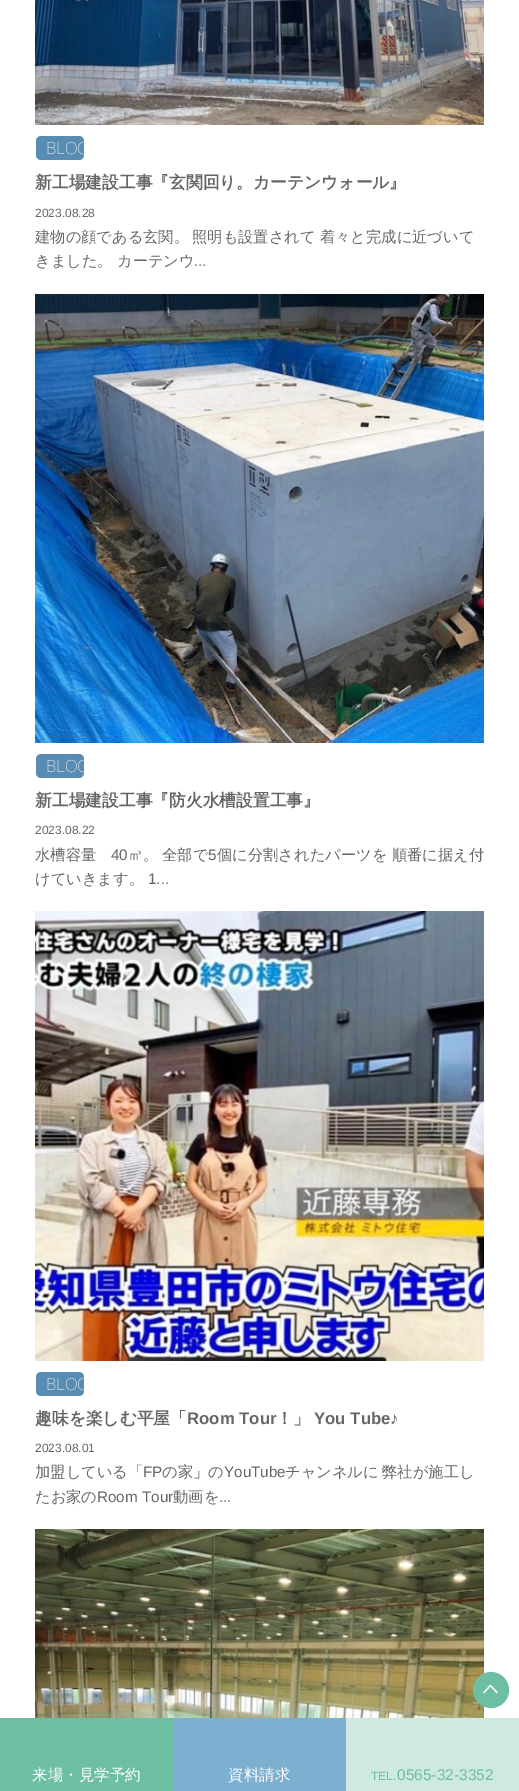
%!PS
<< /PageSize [519 1791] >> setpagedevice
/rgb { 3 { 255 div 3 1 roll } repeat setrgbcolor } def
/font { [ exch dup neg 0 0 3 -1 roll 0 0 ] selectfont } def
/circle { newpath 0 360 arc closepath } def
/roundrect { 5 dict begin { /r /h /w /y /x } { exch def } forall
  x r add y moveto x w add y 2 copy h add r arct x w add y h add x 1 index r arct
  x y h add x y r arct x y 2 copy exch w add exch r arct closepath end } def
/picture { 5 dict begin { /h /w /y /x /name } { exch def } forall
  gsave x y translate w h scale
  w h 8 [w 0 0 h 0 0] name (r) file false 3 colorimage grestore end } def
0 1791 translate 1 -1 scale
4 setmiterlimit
255 255 255 rgb
0 0 519 1791 rectfill
(img/1.rgb) 35 0 449 125 picture
88 140 178 rgb
36 136 48 24 5 roundrect fill
(img/2.rgb) 35 294 449 449 picture
36 754 48 24 5 roundrect fill
(img/3.rgb) 35 911 449 450 picture
36 1372 48 24 5 roundrect fill
(img/4.rgb) 35 1529 449 189 picture
109 191 164 rgb
491 1690 18 circle fill
255 255 255 rgb
1.3 setlinewidth
1 setlinecap
1 setlinejoin
484 1692.5 moveto 490.5 1685.5 lineto 497 1692.5 lineto stroke
[
  [0 1718 173 73 109 191 164]
  [173 1718 173 73 124 175 208]
  [346 1718 173 73 206 233 224]
] { aload pop rgb rectfill } forall
/NotoSans-Thin 16.75 font
255 255 255 rgb
46 154 moveto (BLOG) show
/WenQuanYiZenHei-Bold 16.75 font
102 102 102 rgb
35 188 moveto (新工場建設工事『玄関回り。カーテンウォール』) show
/LiberationSans-Regular 12 font
35 217 moveto (2023.08.28) show
/WenQuanYiZenHei-Medium 15.25 font
[
  [(建物の顔である玄関。) 35 242]
  [(照明も設置されて 着々と完成に近づいて) 192 242]
  [(きました。) 35 266]
  [(カーテンウ) 117 266]
] { aload pop moveto show } forall
/LiberationSans-Regular 15.25 font
194 266 moveto (...) show
/NotoSans-Thin 16.75 font
255 255 255 rgb
46 772 moveto (BLOG) show
/WenQuanYiZenHei-Bold 16.75 font
102 102 102 rgb
35 806 moveto (新工場建設工事『防火水槽設置工事』) show
/LiberationSans-Regular 12 font
35 834 moveto (2023.08.22) show
/WenQuanYiZenHei-Medium 15.25 font
35 860 moveto (水槽容量) show
/LiberationSans-Regular 15.25 font
111 860 moveto (40) show
/WenQuanYiZenHei-Medium 15.25 font
128 860 moveto (㎥。) show
162 860 moveto (全部で) show
/LiberationSans-Regular 15.25 font
208 860 moveto (5) show
/WenQuanYiZenHei-Medium 15.25 font
217 860 moveto (個に分割されたパーツを 順番に据え付) show
35 884 moveto (けていきます。) show
/LiberationSans-Regular 15.25 font
148 884 moveto (1...) show
/NotoSans-Thin 16.75 font
255 255 255 rgb
46 1390 moveto (BLOG) show
/WenQuanYiZenHei-Bold 16.75 font
102 102 102 rgb
35 1424 moveto (趣味を楽しむ平屋「) show
/LiberationSans-Bold 16.75 font
187 1424 moveto (Room Tour) show
/WenQuanYiZenHei-Bold 16.75 font
276 1424 moveto (！」) show
/LiberationSans-Bold 16.75 font
314 1424 moveto (You Tube♪) show
/LiberationSans-Regular 12 font
35 1452 moveto (2023.08.01) show
/WenQuanYiZenHei-Medium 15.25 font
35 1477 moveto (加盟している「) show
/LiberationSans-Regular 15.25 font
143 1477 moveto (FP) show
/WenQuanYiZenHei-Medium 15.25 font
162 1477 moveto (の家」の) show
/LiberationSans-Regular 15.25 font
224 1477 moveto (YouTube) show
/WenQuanYiZenHei-Medium 15.25 font
285 1477 moveto -1 0 32 (チャンネルに 弊社が施工し) widthshow
35 1502 moveto (たお家の) show
/LiberationSans-Regular 15.25 font
97 1502 moveto (Room Tour) show
/WenQuanYiZenHei-Medium 15.25 font
173 1502 moveto (動画を) show
/LiberationSans-Regular 15.25 font
219 1502 moveto (...) show
/WenQuanYiZenHei-Medium 15.5 font
255 255 255 rgb
32 1780 moveto (来場・見学予約) show
228 1780 moveto (資料請求) show
/LiberationSans-Regular 12 font
109 191 164 rgb
371 1780 moveto (TEL.) show
/LiberationSans-Regular 15.5 font
397 1780 moveto (0565-32-3352) show
showpage
